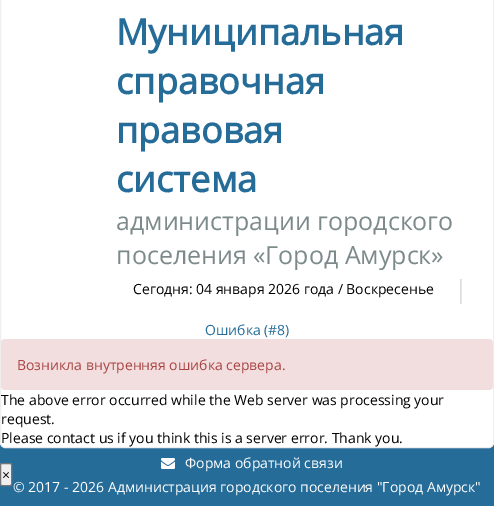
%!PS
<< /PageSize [494 506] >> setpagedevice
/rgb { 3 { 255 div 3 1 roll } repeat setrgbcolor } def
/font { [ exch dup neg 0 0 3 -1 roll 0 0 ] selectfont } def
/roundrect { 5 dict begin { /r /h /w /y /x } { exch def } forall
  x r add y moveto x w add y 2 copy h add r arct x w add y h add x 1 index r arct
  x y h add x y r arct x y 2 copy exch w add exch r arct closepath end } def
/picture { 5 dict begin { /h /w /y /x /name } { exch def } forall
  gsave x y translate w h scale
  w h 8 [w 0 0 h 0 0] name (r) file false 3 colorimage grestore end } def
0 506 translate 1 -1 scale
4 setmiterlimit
38 108 153 rgb
0 0 494 506 rectfill
255 255 255 rgb
0.5 -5.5 493 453 4.5 roundrect gsave fill grestore
238 238 238 rgb
stroke
242 222 222 rgb
1 339 492 51 4 roundrect fill
239 239 239 rgb
0.5 463.5 11 22 1.5 roundrect gsave fill grestore
118 118 118 rgb
stroke
(img/1.rgb) 161 458 14 11 picture
/OpenSans-Bold 36 font
38 108 153 rgb
[
  [(Муниципальная) 116 45]
  [(справочная) 116 94]
  [(правовая) 116 143]
  [(система) 116 192]
] { aload pop moveto show } forall
/OpenSans-Regular 25 font
125 138 139 rgb
116 230 moveto (администрации городского) show
116 264 moveto (поселения «Город Амурск») show
/OpenSans-Regular 14 font
0 0 0 rgb
133 294 moveto (Сегодня: 04 января 2026 года / Воскресенье) show
/OpenSans-Regular 25 font
221 221 221 rgb
454 298 moveto (|) show
/OpenSans-Regular 14 font
38 108 153 rgb
205 335 moveto (Ошибка \(#8\)) show
169 68 66 rgb
17 370 moveto (Возникла внутренняя ошибка сервера.) show
0 0 0 rgb
[
  [(The above error occurred while the Web server was processing your) 1 405]
  [(request.) 1 424]
  [(Please contact us if you think this is a server error. Thank you.) 1 443]
  [(×) 2 480]
] { aload pop moveto show } forall
255 255 255 rgb
185 468 moveto (Форма обратной связи) show
13 492 moveto (© 2017 - 2026 Администрация городского поселения "Город Амурск") show
showpage
